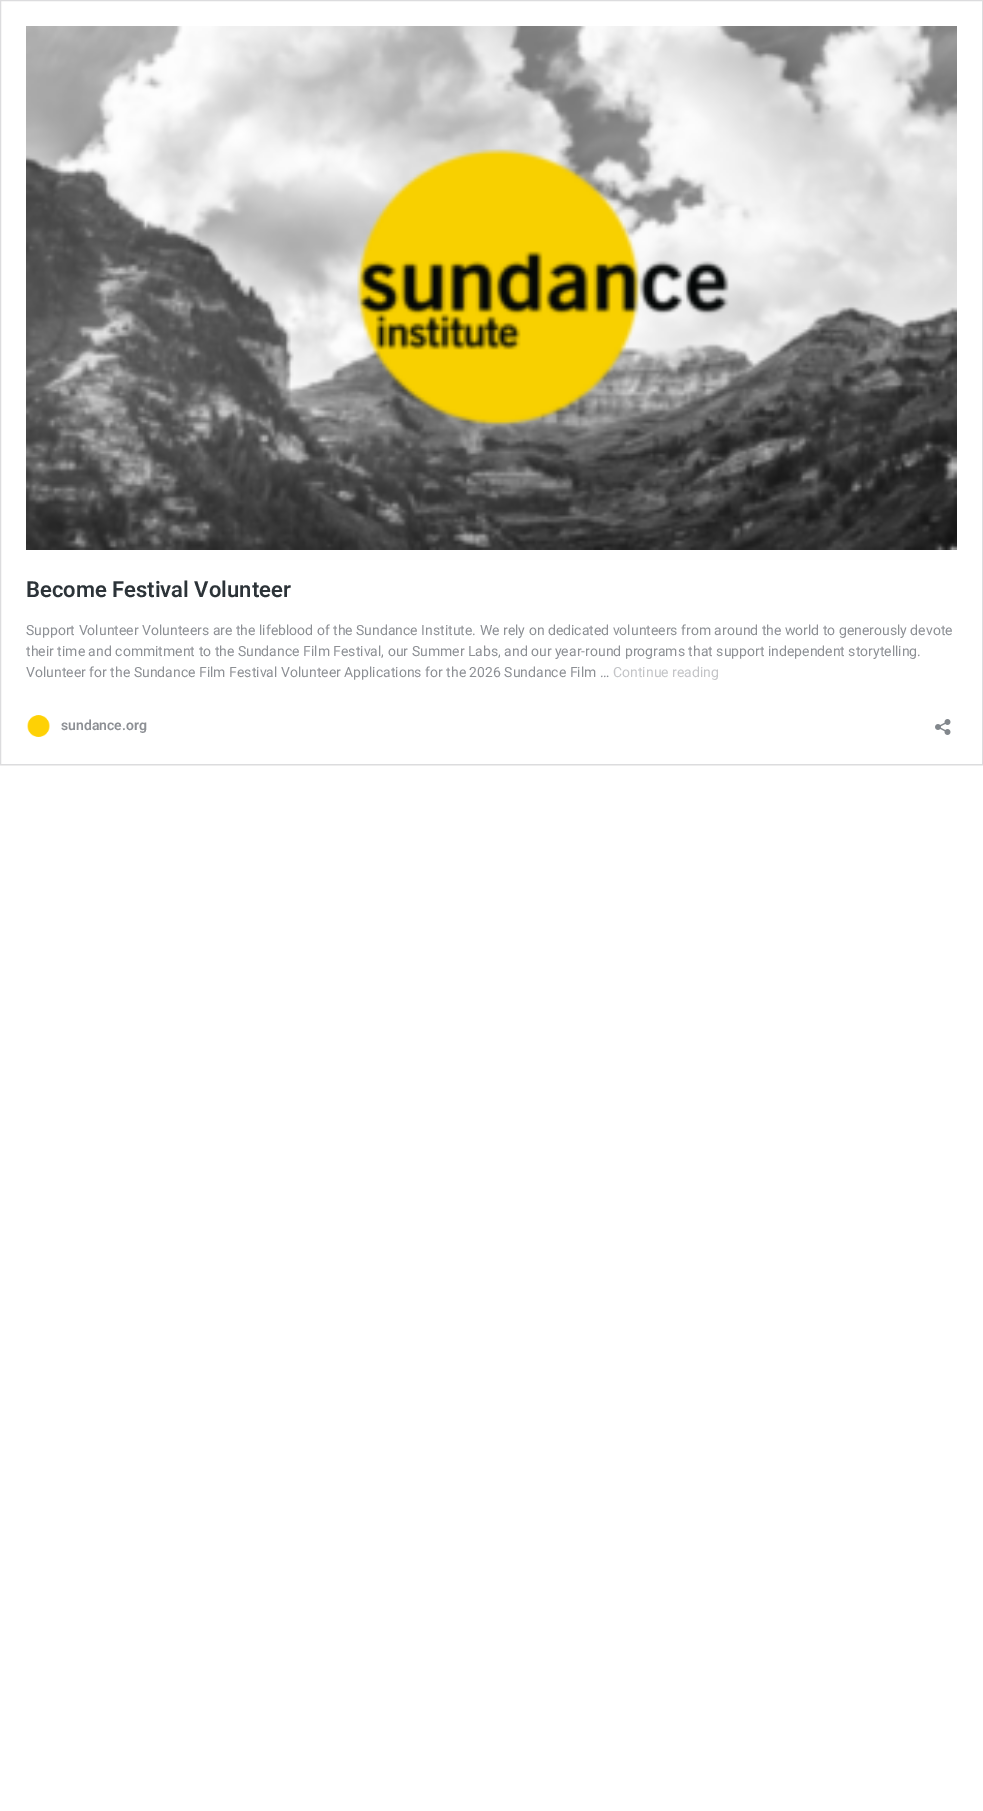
%!PS
<< /PageSize [983 1811] /PageUsesTransparency true >> setpagedevice
/rgb { 3 { 255 div 3 1 roll } repeat setrgbcolor } def
/font { [ exch dup neg 0 0 3 -1 roll 0 0 ] selectfont } def
/alpha { dup .setfillconstantalpha .setstrokeconstantalpha } def
/roundrect { 5 dict begin { /r /h /w /y /x } { exch def } forall
  x r add y moveto x w add y 2 copy h add r arct x w add y h add x 1 index r arct
  x y h add x y r arct x y 2 copy exch w add exch r arct closepath end } def
/shadow { 12 dict begin { /a /b /q /h /w /y /x } { exch def } forall gsave /was 0 def
  9 -2 -9 { dup b mul 4 div /e exch def 1 sub .425 mul 2.718 exch exp 1 add a .99 .min exch div /now exch def
    1 1 now sub 1 was sub div sub alpha /was now def
    w h .min e 2 mul add 0 gt { x e sub y e sub w e 2 mul add h e 2 mul add
      q e add b .6 mul add w h .min 2 div e add .min 0 .max roundrect fill } if } for grestore end } def
/picture { 5 dict begin { /h /w /y /x /name } { exch def } forall
  gsave x y translate w h scale
  w h 8 [w 0 0 h 0 0] name (r) file false 3 colorimage grestore end } def
0 .pushpdf14devicefilter
0 1811 translate 1 -1 scale
4 setmiterlimit
255 255 255 rgb
0 0 983 1811 rectfill
gsave
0 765 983 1 rectclip
0 0 0 rgb
0 1 983 765 0 0.5 0.05 shadow
grestore
220 220 222 rgb
0.5 0.5 982 764 rectstroke
(img/1.rgb) 26 26 931 524 picture
(img/2.rgb) 27 715 23 22 picture
(img/3.rgb) 935 719 16 16 picture
/Roboto-SemiBold 22 font
44 51 56 rgb
26 597 moveto (Become Festival Volunteer) show
/Roboto-Regular 14 font
140 143 148 rgb
[
  [(Support Volunteer Volunteers are the lifeblood of the Sundance Institute. We rely on dedicated volunteers from around the world to generously devote) 26 635]
  [(their time and commitment to the Sundance Film Festival, our Summer Labs, and our year-round programs that support independent storytelling.) 26 656]
  [(Volunteer for the Sundance Film Festival Volunteer Applications for the 2026 Sundance Film …) 26 677]
] { aload pop moveto show } forall
195 196 199 rgb
613 677 moveto (Continue reading) show
/Roboto-SemiBold 14 font
140 143 148 rgb
61 730 moveto (sundance.org) show
.poppdf14devicefilter showpage
